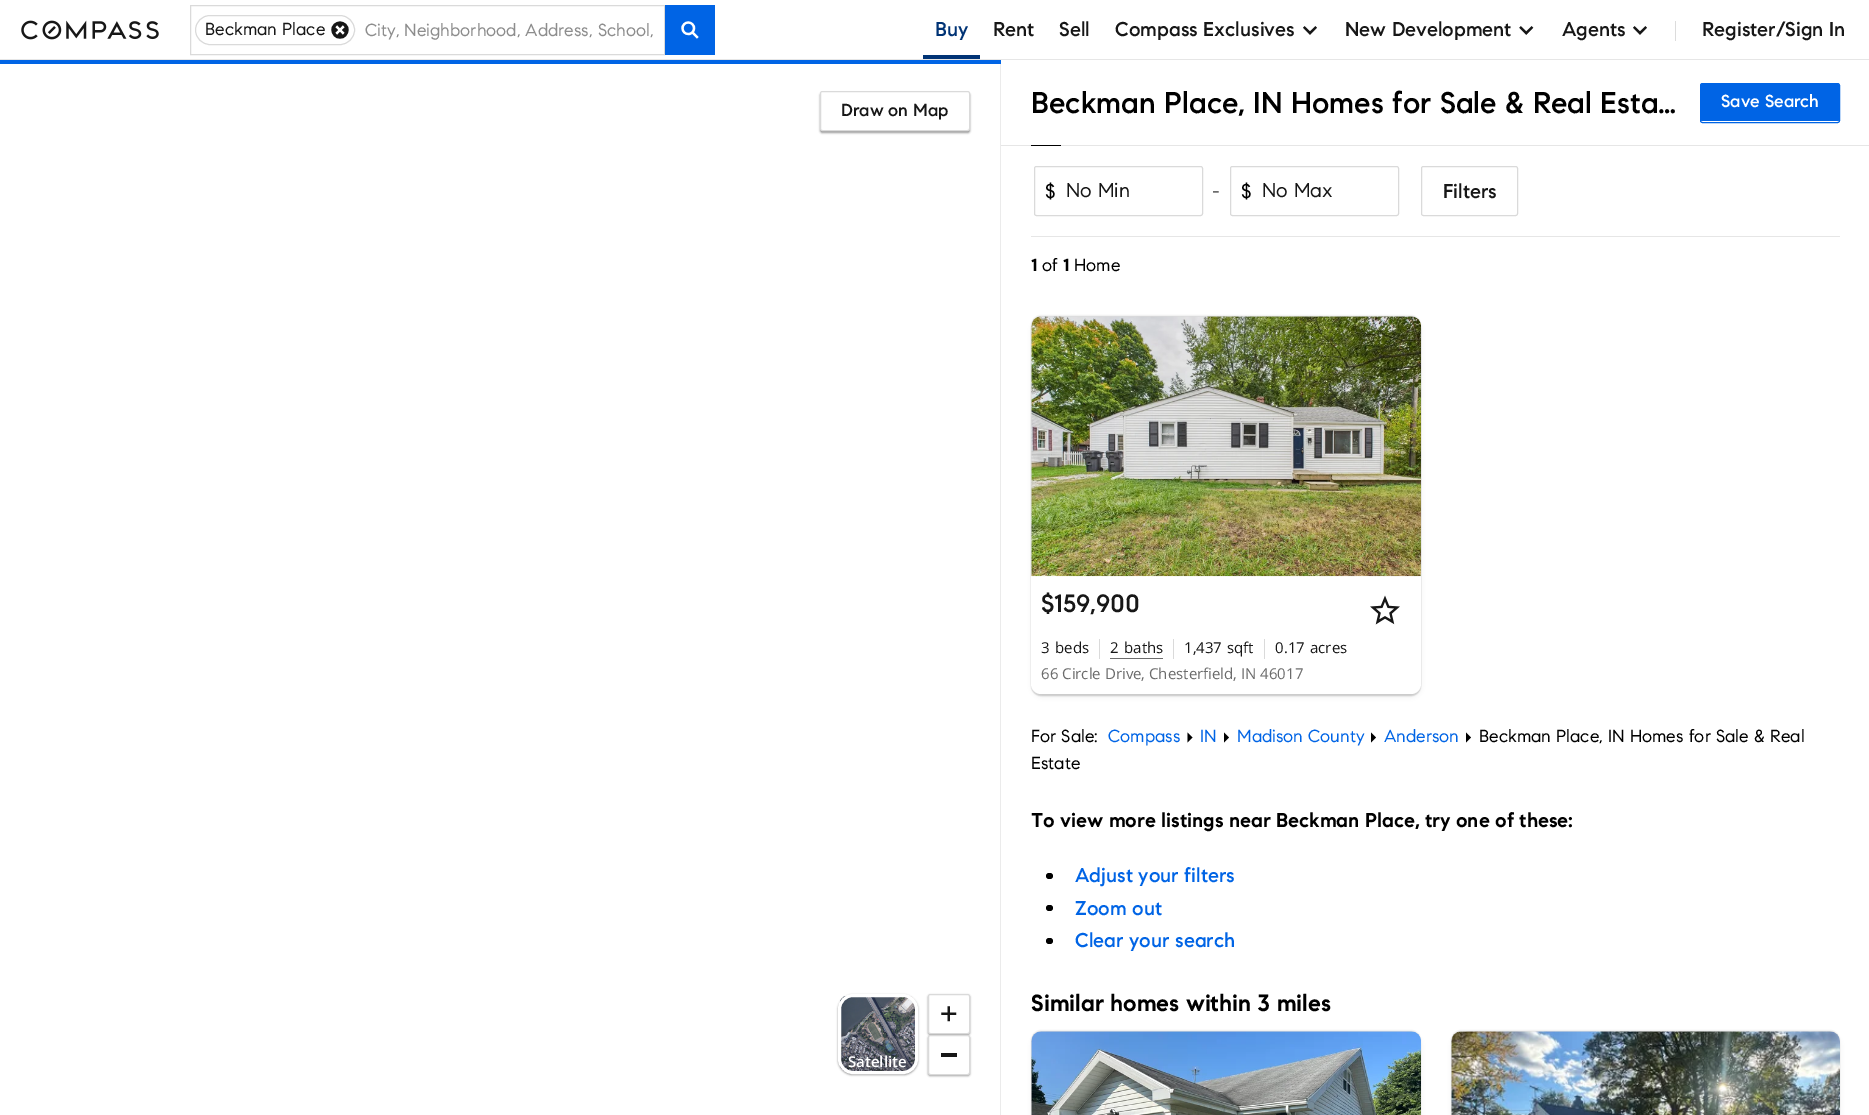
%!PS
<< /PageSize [1869 1115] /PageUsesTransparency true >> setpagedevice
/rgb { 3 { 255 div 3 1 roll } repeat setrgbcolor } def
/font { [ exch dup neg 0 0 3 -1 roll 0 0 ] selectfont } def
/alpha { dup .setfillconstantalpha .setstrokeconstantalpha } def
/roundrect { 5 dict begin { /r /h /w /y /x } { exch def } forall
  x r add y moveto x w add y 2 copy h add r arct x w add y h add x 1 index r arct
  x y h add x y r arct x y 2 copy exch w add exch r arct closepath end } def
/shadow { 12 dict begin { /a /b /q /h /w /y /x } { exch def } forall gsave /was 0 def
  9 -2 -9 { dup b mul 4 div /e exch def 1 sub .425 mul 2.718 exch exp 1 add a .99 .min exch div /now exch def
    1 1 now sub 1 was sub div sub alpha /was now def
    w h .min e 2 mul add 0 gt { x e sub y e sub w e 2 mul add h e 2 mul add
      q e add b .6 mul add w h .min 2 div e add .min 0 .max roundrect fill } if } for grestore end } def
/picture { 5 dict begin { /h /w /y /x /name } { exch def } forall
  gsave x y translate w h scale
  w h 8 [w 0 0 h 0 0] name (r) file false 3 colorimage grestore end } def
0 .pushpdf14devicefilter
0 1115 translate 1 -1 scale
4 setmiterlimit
255 255 255 rgb
0 0 1869 1115 rectfill
230 230 230 rgb
0 59 1869 1 rectfill
(img/1.rgb) 21 20 138 20 picture
218 218 218 rgb
190.5 5.5 474 49 rectstroke
195.5 15.5 159 29 14.5 roundrect stroke
(img/2.rgb) 331 21 18 18 picture
0 100 229 rgb
665 5 50 50 rectfill
(img/3.rgb) 681 21 18 18 picture
0 51 117 rgb
923 55 57 4 rectfill
(img/4.rgb) 1303 26 14 9 picture
(img/5.rgb) 1519 26 15 9 picture
(img/4.rgb) 1633 26 14 9 picture
220 220 220 rgb
1675 21 1 20 rectfill
0.08 alpha
0 0 0 rgb
1001 60 moveto 1001 1115 lineto 1000 1115 lineto 1000 61 lineto closepath fill
1 alpha
0 100 229 rgb
0 60 1001 4 rectfill
gsave
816 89 moveto 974 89 lineto 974 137 lineto 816 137 lineto closepath 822.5 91 moveto 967.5 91 lineto 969 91 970 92 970 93.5 curveto 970 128.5 lineto 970 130 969 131 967.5 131 curveto 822.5 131 lineto 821 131 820 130 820 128.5 curveto 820 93.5 lineto 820 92 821 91 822.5 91 curveto closepath eoclip newpath
0 0 0 rgb
820 93 150 40 2.5 1 0.4 shadow
grestore
218 218 218 rgb
820.5 91.5 149 39 2 roundrect stroke
0 0 0 rgb
838 995 80 80 15 1 0.4 shadow
(img/6.rgb) 840 996 75 76 picture
255 255 255 rgb
3 setlinewidth
839.5 995.5 77 77 13.5 roundrect stroke
gsave
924 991 moveto 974 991 lineto 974 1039 lineto 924 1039 lineto closepath 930.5 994 moveto 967.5 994 lineto 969 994 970 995 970 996.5 curveto 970 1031.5 lineto 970 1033 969 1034 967.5 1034 curveto 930.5 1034 lineto 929 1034 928 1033 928 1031.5 curveto 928 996.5 lineto 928 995 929 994 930.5 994 curveto closepath eoclip newpath
0 0 0 rgb
928 995 42 40 2.5 1 0.4 shadow
grestore
218 218 218 rgb
1 setlinewidth
928.5 994.5 41 39 2 roundrect stroke
(img/7.rgb) 941 1006 16 16 picture
0 0 0 rgb
928 1036 42 40 2.5 1 0.4 shadow
255 255 255 rgb
929 1036 40 38 1 roundrect fill
218 218 218 rgb
928.5 1035.5 41 39 2 roundrect stroke
23 23 23 rgb
941 1053 16 4 rectfill
230 230 230 rgb
1001 145 868 1 rectfill
0 100 229 rgb
1701 84 138 37 1 roundrect fill
1700.5 83.5 139 39 2 roundrect stroke
0 0 0 rgb
1031 145 30 1 rectfill
218 218 218 rgb
1034.5 166.5 168 49 2 roundrect stroke
1230.5 166.5 168 49 2 roundrect stroke
1421.5 166.5 96 49 2 roundrect stroke
230 230 230 rgb
1031 236 809 1 rectfill
0 0 0 rgb
1031 315 390 378 10 0.5 0.06 shadow
1031 319 390 377 10 0.5 0.14 shadow
1033 321 387 375 9 2.5 0.1 shadow
255 255 255 rgb
1031 316 390 378 10 roundrect fill
218 218 218 rgb
1041 316 moveto 1411 316 lineto 1416.5 316 1421 320.5 1421 326 curveto 1421 576 lineto 1031 576 lineto 1031 326 lineto 1031 320.5 1035.5 316 1041 316 curveto closepath fill
(img/8.rgb) 1031 316 390 261 picture
(img/9.rgb) 1370 595 30 30 picture
[
  [1099 639 1 20 218 218 218]
  [1110 658 53 1 108 108 108]
  [1173 639 1 20 218 218 218]
  [1264 639 1 20 218 218 218]
] { aload pop rgb rectfill } forall
0 0 0 rgb
1466 742.5 moveto 1466 732.5 lineto 1471 737.5 lineto closepath fill
1187.5 742.5 moveto 1187.5 732.5 lineto 1192.5 737.5 lineto closepath fill
1224 742.5 moveto 1224 732.5 lineto 1229 737.5 lineto closepath fill
1371 742.5 moveto 1371 732.5 lineto 1376 737.5 lineto closepath fill
1046 873 7 6 3 roundrect fill
1046 905 7 6 3 roundrect fill
1046 938 7 6 3 roundrect fill
1031 1030 390 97 10 0.5 0.06 shadow
1033 1036 387 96 9 2.5 0.1 shadow
218 218 218 rgb
1041 1031 moveto 1411 1031 lineto 1416.5 1031 1421 1035.5 1421 1041 curveto 1421 1115 lineto 1031 1115 lineto 1031 1041 lineto 1031 1035.5 1035.5 1031 1041 1031 curveto closepath fill
(img/10.rgb) 1031 1031 390 84 picture
0 0 0 rgb
1451 1030 389 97 10 0.5 0.06 shadow
1453 1036 386 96 9 2.5 0.1 shadow
218 218 218 rgb
1461 1031 moveto 1830 1031 lineto 1835.5 1031 1840 1035.5 1840 1041 curveto 1840 1115 lineto 1451 1115 lineto 1451 1041 lineto 1451 1035.5 1455.5 1031 1461 1031 curveto closepath fill
(img/11.rgb) 1451 1031 389 84 picture
/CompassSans-Regular 17.5 font
23 23 23 rgb
205 35 moveto (Beckman Place) show
141 141 141 rgb
365 36 moveto (City, Neighborhood, Address, School,) show
/CompassSans-Medium 20 font
0 51 117 rgb
935 36 moveto (Buy) show
23 23 23 rgb
[
  [(Rent) 993 36]
  [(Sell) 1059 36]
  [(Compass Exclusives) 1115 36]
  [(New Development) 1345 36]
  [(Agents) 1562 36]
  [(Register/Sign In) 1702 36]
] { aload pop moveto show } forall
/CompassSans-Medium 17.5 font
841 116 moveto (Draw on Map) show
/OpenSans-SemiBold 15 font
255 255 255 rgb
848 1067 moveto (Satellite) show
/CompassSans-Medium 30 font
0 0 0 rgb
1031 113 moveto (Beckman Place, IN Homes for Sale & Real Esta…) show
/CompassSans-Medium 17.5 font
255 255 255 rgb
1721 107 moveto (Save Search) show
/CompassSans-Regular 20 font
0 0 0 rgb
1045 198 moveto ($) show
23 23 23 rgb
1066 197 moveto (No Min) show
108 108 108 rgb
1212 198 moveto (-) show
0 0 0 rgb
1241 198 moveto ($) show
23 23 23 rgb
1262 197 moveto (No Max) show
/CompassSans-Medium 20 font
1443 198 moveto (Filters) show
/CompassSans-Bold 17.5 font
0 0 0 rgb
1031 271 moveto (1) show
/CompassSans-Regular 17.5 font
1042 271 moveto (of) show
/CompassSans-Bold 17.5 font
1063 271 moveto (1) show
/CompassSans-Regular 17.5 font
1074 271 moveto (Home) show
/CompassSans-Medium 25 font
23 23 23 rgb
1041 612 moveto ($159,900) show
/OpenSans-Regular 15 font
[
  [(3) 1041 653]
  [(beds) 1055 653]
  [(2) 1110 653]
  [(baths) 1124 653]
  [(1,437) 1184 653]
  [(sqft) 1227 653]
  [(0.17) 1275 653]
  [(acres) 1310 653]
] { aload pop moveto show } forall
108 108 108 rgb
1041 679 moveto (66 Circle Drive, Chesterfield, IN 46017) show
/CompassSans-Regular 17.5 font
0 0 0 rgb
1479 742 moveto (Beckman Place, IN Homes for Sale & Real) show
1031 769 moveto (Estate) show
0 100 229 rgb
[
  [(Compass) 1108 742]
  [(IN) 1200 742]
  [(Madison County) 1237 742]
  [(Anderson) 1384 742]
] { aload pop moveto show } forall
0 0 0 rgb
1031 742 moveto (For Sale:) show
/CompassSans-Bold 20 font
1031 827 moveto (To view more listings near Beckman Place, try one of these:) show
/CompassSans-Medium 20 font
0 100 229 rgb
[
  [(Adjust your filters) 1075 882]
  [(Zoom out) 1075 915]
  [(Clear your search) 1075 947]
] { aload pop moveto show } forall
/CompassSans-Bold 23.4 font
0 0 0 rgb
1031 1011 moveto (Similar homes within 3 miles) show
.poppdf14devicefilter showpage
